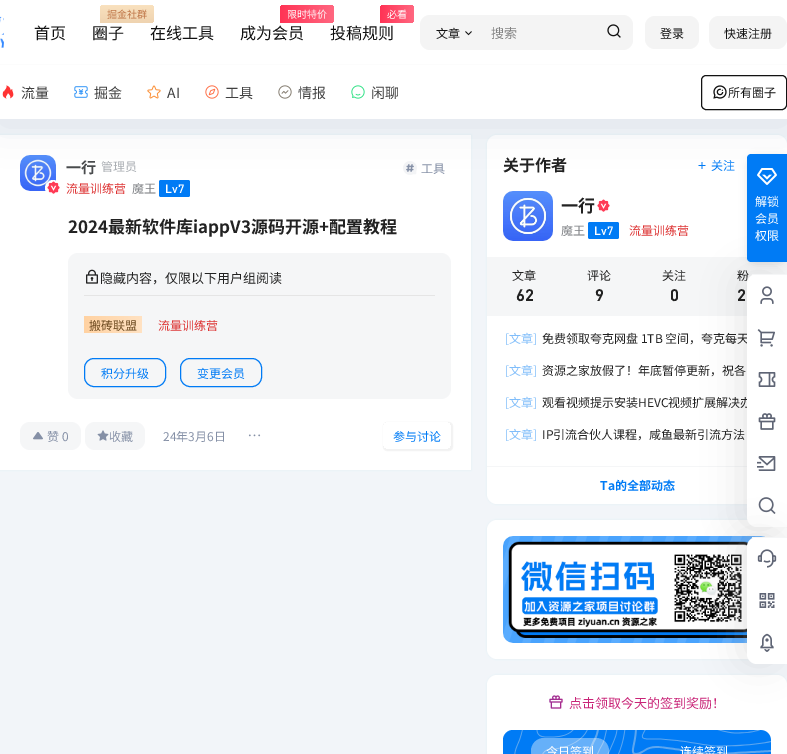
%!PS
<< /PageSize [787 754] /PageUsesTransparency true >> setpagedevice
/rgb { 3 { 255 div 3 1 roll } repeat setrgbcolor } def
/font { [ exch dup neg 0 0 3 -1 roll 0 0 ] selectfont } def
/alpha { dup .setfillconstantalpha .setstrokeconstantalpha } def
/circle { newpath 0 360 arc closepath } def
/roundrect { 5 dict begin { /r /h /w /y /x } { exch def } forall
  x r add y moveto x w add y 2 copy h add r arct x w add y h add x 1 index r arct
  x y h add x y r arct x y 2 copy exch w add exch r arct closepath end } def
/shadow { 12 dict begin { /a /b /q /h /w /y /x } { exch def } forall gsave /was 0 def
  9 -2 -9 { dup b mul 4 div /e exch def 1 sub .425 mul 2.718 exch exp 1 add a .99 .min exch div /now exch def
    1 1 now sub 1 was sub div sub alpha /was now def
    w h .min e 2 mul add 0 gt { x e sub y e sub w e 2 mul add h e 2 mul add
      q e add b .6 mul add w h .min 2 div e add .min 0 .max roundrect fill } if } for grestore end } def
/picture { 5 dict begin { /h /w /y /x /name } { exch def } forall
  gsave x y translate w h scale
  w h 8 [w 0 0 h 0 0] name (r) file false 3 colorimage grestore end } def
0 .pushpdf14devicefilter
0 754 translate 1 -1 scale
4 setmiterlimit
242 245 249 rgb
0 0 787 754 rectfill
98 124 153 rgb
0 135 471 335 0 1 0.1 shadow
255 255 255 rgb
0 135 471 335 rectfill
(img/11.rgb) 20 155 36 36 picture
53 188 8 circle fill
(img/12.rgb) 47 181 13 13 picture
0 123 245 rgb
159 180 31 17 2 roundrect fill
(img/13.rgb) 403 161 14 14 picture
98 124 153 rgb
487 135 300 369 10 1 0.1 shadow
255 255 255 rgb
487 135 300 369 10 roundrect fill
(img/18.rgb) 698 162 8 7 picture
17 58 93 rgb
0 5 787 119 0 20 0.1 shadow
255 255 255 rgb
0 0 787 64 rectfill
(img/1.rgb) 0 16 4 32 picture
gsave
0 15 4 34 rectclip
0.62 alpha
-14.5 23.5 moveto -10.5 16.5 lineto 6.5 26.5 lineto 3 33.5 lineto closepath fill
grestore
gsave 104 5 moveto 150 5 lineto 152 5 154 7 154 9 curveto 154 19 lineto 154 21 152 23 150 23 curveto 100 23 lineto 100 9 lineto 100 7 102 5 104 5 curveto closepath clip newpath
<< /ShadingType 2 /ColorSpace /DeviceRGB /Coords [127 23 127 4.5] /Extend [true true] /Function << /FunctionType 2 /Domain [0 1] /C0 [0.937 0.827 0.69] /C1 [0.976 0.882 0.745] /N 1 >> >> shfill grestore
gsave 284 5 moveto 330 5 lineto 332 5 334 7 334 9 curveto 334 19 lineto 334 21 332 23 330 23 curveto 280 23 lineto 280 9 lineto 280 7 282 5 284 5 curveto closepath clip newpath
<< /ShadingType 2 /ColorSpace /DeviceRGB /Coords [280 14 334 14] /Extend [true true] /Function << /FunctionType 2 /Domain [0 1] /C0 [1 0.2 0.333] /C1 [1 0.404 0.502] /N 1 >> >> shfill grestore
gsave 384 5 moveto 410 5 lineto 412 5 414 7 414 9 curveto 414 19 lineto 414 21 412 23 410 23 curveto 380 23 lineto 380 9 lineto 380 7 382 5 384 5 curveto closepath clip newpath
<< /ShadingType 2 /ColorSpace /DeviceRGB /Coords [380 14 414 14] /Extend [true true] /Function << /FunctionType 2 /Domain [0 1] /C0 [1 0.2 0.333] /C1 [1 0.404 0.502] /N 1 >> >> shfill grestore
244 244 244 rgb
420 15 213 35 10 roundrect fill
(img/2.rgb) 465 31 7 5 picture
(img/3.rgb) 607 24 14 14 picture
645 16 54 33 10 roundrect fill
709 16 78 33 10 roundrect fill
255 255 255 rgb
0 65 787 54 rectfill
252 252 252 rgb
0 64 787 1 rectfill
(img/4.rgb) 2 85 12 14 picture
(img/5.rgb) 74 86 14 12 picture
(img/6.rgb) 147 85 14 14 picture
(img/7.rgb) 205 85 14 14 picture
(img/8.rgb) 278 85 14 14 picture
(img/9.rgb) 351 85 14 14 picture
18 18 18 rgb
701.5 75.5 85 34 4.5 roundrect stroke
(img/10.rgb) 713 85 14 14 picture
245 246 247 rgb
68 253 383 146 10 roundrect fill
229 229 229 rgb
84 295 351 1 rectfill
(img/14.rgb) 86 269 12 15 picture
gsave 84 316 58 17 3 roundrect clip newpath
<< /ShadingType 2 /ColorSpace /DeviceRGB /Coords [84 324 142 325] /Extend [true true] /Function << /FunctionType 2 /Domain [0 1] /C0 [1 0.824 0.635] /C1 [1 0.886 0.761] /N 1 >> >> shfill grestore
0 123 245 rgb
84.5 358.5 81 28 9.5 roundrect stroke
180.5 358.5 81 28 9.5 roundrect stroke
245 246 247 rgb
20 422 61 28 10 roundrect fill
(img/15.rgb) 33 432 10 8 picture
85 422 60 28 10 roundrect fill
(img/16.rgb) 97 430 12 11 picture
(img/17.rgb) 248 434 13 3 picture
gsave
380 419 moveto 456 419 lineto 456 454 lineto 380 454 lineto closepath 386 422 moveto 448 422 lineto 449.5 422 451 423.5 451 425 curveto 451 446 lineto 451 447.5 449.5 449 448 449 curveto 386 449 lineto 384.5 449 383 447.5 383 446 curveto 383 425 lineto 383 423.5 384.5 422 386 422 curveto closepath eoclip newpath
144 144 144 rgb
383 422 70 29 4 0.5 0.13 shadow
grestore
238 238 238 rgb
503 191 50 50 10 roundrect fill
(img/19.rgb) 503 191 50 50 picture
(img/20.rgb) 597 199 13 13 picture
0 123 245 rgb
588 222 31 17 2 roundrect fill
245 246 247 rgb
487 257 300 59 rectfill
487 466 260 1 rectfill
98 124 153 rgb
487 520 300 139 10 1 0.1 shadow
255 255 255 rgb
487 520 300 139 10 roundrect fill
(img/21.rgb) 503 536 262 107 picture
98 124 153 rgb
487 675 300 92 10 1 0.1 shadow
255 255 255 rgb
487 675 300 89 10 roundrect fill
(img/22.rgb) 549 695 14 14 picture
0 123 245 rgb
503 730 268 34 10 roundrect fill
(img/23.rgb) 514 730 257 24 picture
0.4 alpha
255 255 255 rgb
531 738 78 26 13 roundrect fill
1 alpha
181 181 181 rgb
739 274 40 253 10 17.5 0.32 shadow
/NotoSansCJKSC-Regular 16 font
18 18 18 rgb
34 39 moveto (首页) show
/NotoSansCJKSC-Regular 10 font
191 118 72 rgb
107 18 moveto (掘金社群) show
/NotoSansCJKSC-Regular 16 font
18 18 18 rgb
92 39 moveto (圈子) show
150 39 moveto (在线工具) show
/NotoSansCJKSC-Regular 10 font
255 255 255 rgb
287 18 moveto (限时特价) show
/NotoSansCJKSC-Regular 16 font
18 18 18 rgb
240 39 moveto (成为会员) show
/NotoSansCJKSC-Regular 10 font
255 255 255 rgb
387 18 moveto (必看) show
/NotoSansCJKSC-Regular 16 font
18 18 18 rgb
330 39 moveto (投稿规则) show
/NotoSansCJKSC-Regular 12 font
436 38 moveto (文章) show
/NotoSansCJKSC-Regular 13 font
131 131 131 rgb
491 38 moveto (搜索) show
/NotoSansCJKSC-Regular 12 font
18 18 18 rgb
660 38 moveto (登录) show
724 38 moveto (快速注册) show
/NotoSansCJKSC-Regular 14 font
65 65 65 rgb
[
  [(流量) 21 98]
  [(掘金) 94 98]
  [(AI) 167 98]
  [(工具) 225 98]
  [(情报) 298 98]
  [(闲聊) 371 98]
] { aload pop moveto show } forall
/NotoSansCJKSC-Regular 12 font
18 18 18 rgb
728 97 moveto (所有圈子) show
/NotoSansCJKSC-Bold 15 font
73 75 77 rgb
66 173 moveto (一行) show
/NotoSansCJKSC-Regular 12 font
170 174 179 rgb
101 171 moveto (管理员) show
221 51 51 rgb
66 193 moveto (流量训练营) show
121 124 128 rgb
132 193 moveto (魔王) show
/DIN-Medium 12 font
255 255 255 rgb
165 193 moveto (Lv7) show
/NotoSansCJKSC-Regular 12 font
133 144 166 rgb
421 173 moveto (工具) show
/NotoSansCJKSC-Bold 17 font
34 34 34 rgb
68 233 moveto (2024最新软件库iappV3源码开源+配置教程) show
/NotoSansCJKSC-Regular 13 font
100 283 moveto (隐藏内容，仅限以下用户组阅读) show
/NotoSansCJKSC-Regular 12 font
108 74 32 rgb
89 330 moveto (搬砖联盟) show
221 51 51 rgb
158 330 moveto (流量训练营) show
0 123 245 rgb
101 378 moveto (积分升级) show
197 378 moveto (变更会员) show
133 144 166 rgb
[
  [(赞) 47 441]
  [(0) 62 441]
  [(收藏) 109 441]
  [(24年3月6日) 163 441]
] { aload pop moveto show } forall
0 123 245 rgb
393 441 moveto (参与讨论) show
/NotoSansCJKSC-Bold 16 font
34 34 34 rgb
503 171 moveto (关于作者) show
/NotoSansCJKSC-Regular 12 font
0 123 245 rgb
711 170 moveto (关注) show
/NotoSansCJKSC-Bold 17 font
34 34 34 rgb
561 212 moveto (一行) show
/NotoSansCJKSC-Regular 12 font
121 124 128 rgb
561 235 moveto (魔王) show
/DIN-Medium 12 font
255 255 255 rgb
594 235 moveto (Lv7) show
/NotoSansCJKSC-Regular 12 font
221 51 51 rgb
629 235 moveto (流量训练营) show
34 34 34 rgb
512 280 moveto (文章) show
/DIN-Bold 16 font
516 301 moveto (62) show
/NotoSansCJKSC-Regular 12 font
587 280 moveto (评论) show
/DIN-Bold 16 font
595 301 moveto (9) show
/NotoSansCJKSC-Regular 12 font
662 280 moveto (关注) show
/DIN-Bold 16 font
670 301 moveto (0) show
/NotoSansCJKSC-Regular 12 font
737 280 moveto (粉) show
/DIN-Bold 16 font
737 301 moveto (2) show
/NotoSansCJKSC-Regular 12 font
128 189 250 rgb
505 343 moveto ([文章]) show
34 34 34 rgb
542 343 moveto (免费领取夸克网盘 1TB 空间，夸克每天) show
128 189 250 rgb
505 375 moveto ([文章]) show
34 34 34 rgb
542 375 moveto (资源之家放假了！年底暂停更新，祝各) show
128 189 250 rgb
505 407 moveto ([文章]) show
34 34 34 rgb
542 407 moveto (观看视频提示安装HEVC视频扩展解决办) show
128 189 250 rgb
505 439 moveto ([文章]) show
34 34 34 rgb
542 439 moveto (IP引流合伙人课程，咸鱼最新引流方法) show
/NotoSansCJKSC-Bold 12 font
0 123 245 rgb
600 490 moveto (Ta的全部动态) show
/NotoSansCJKSC-Regular 13 font
201 37 120 rgb
569 708 moveto (点击领取今天的签到奖励！) show
/NotoSansCJKSC-Regular 12 font
255 255 255 rgb
546 756 moveto (今日签到) show
680 756 moveto (连续签到) show
757 274 moveto 787 274 lineto 787 527 lineto 757 527 lineto 751.5 527 747 522.5 747 517 curveto 747 284 lineto 747 278.5 751.5 274 757 274 curveto closepath fill
245 246 247 rgb
752 274 35 1 rectfill
0 0 0 rgb
747 156 40 108 10 4 0.1 shadow
0 123 245 rgb
751 154 moveto 787 154 lineto 787 262 lineto 751 262 lineto 749 262 747 260 747 258 curveto 747 158 lineto 747 156 749 154 751 154 curveto closepath fill
255 255 255 rgb
[
  [(权限) 755 240]
  [(会员) 755 223]
  [(解锁) 755 206]
] { aload pop moveto show } forall
(img/24.rgb) 757 168 20 17 picture
(img/25.rgb) 760 286 14 18 picture
(img/26.rgb) 757 329 18 18 picture
(img/27.rgb) 758 372 18 15 picture
(img/28.rgb) 758 413 18 17 picture
(img/29.rgb) 757 456 19 15 picture
(img/30.rgb) 758 497 18 17 picture
181 181 181 rgb
739 537 40 127 10 17.5 0.32 shadow
255 255 255 rgb
757 537 moveto 787 537 lineto 787 664 lineto 757 664 lineto 751.5 664 747 659.5 747 654 curveto 747 547 lineto 747 541.5 751.5 537 757 537 curveto closepath fill
245 246 247 rgb
752 537 35 1 rectfill
(img/31.rgb) 757 549 20 19 picture
(img/32.rgb) 759 593 16 15 picture
(img/33.rgb) 760 633 14 19 picture
.poppdf14devicefilter showpage
